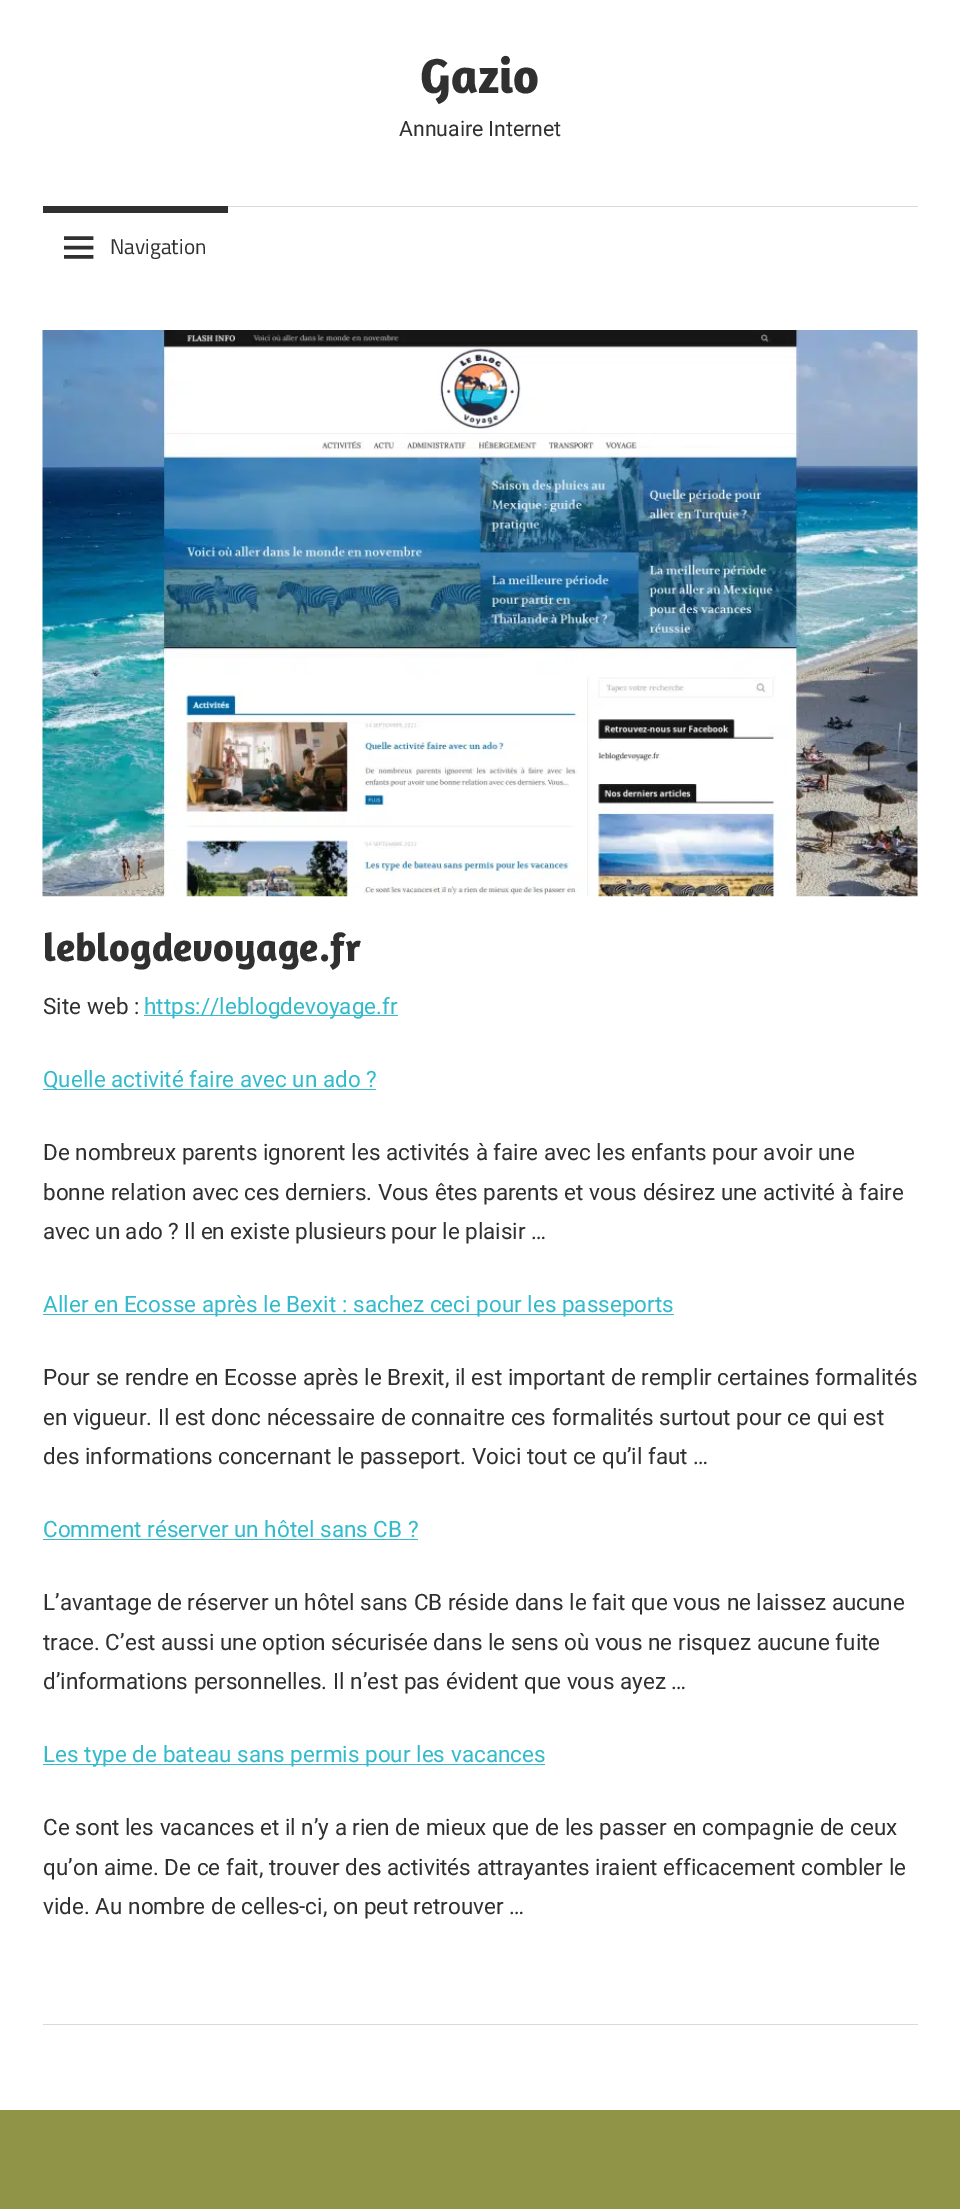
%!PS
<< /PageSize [960 2209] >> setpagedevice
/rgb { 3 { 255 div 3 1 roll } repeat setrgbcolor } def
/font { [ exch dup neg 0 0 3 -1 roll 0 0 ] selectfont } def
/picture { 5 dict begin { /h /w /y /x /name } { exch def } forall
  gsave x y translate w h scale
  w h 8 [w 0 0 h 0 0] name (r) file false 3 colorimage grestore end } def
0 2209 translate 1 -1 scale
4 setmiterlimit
144 148 71 rgb
0 0 960 2209 rectfill
[
  [0 0 960 2110 255 255 255]
  [228 206 690 1 217 217 217]
  [43 206 185 7 48 48 48]
] { aload pop rgb rectfill } forall
(img/1.rgb) 64 236 30 23 picture
(img/2.rgb) 42 330 876 567 picture
[
  [144 1015 254 1 51 187 204]
  [43 1089 333 1 51 187 204]
  [43 1314 631 1 51 187 204]
  [43 1539 375 1 51 187 204]
  [43 1764 502 1 51 187 204]
  [43 2024 875 1 217 217 217]
] { aload pop rgb rectfill } forall
/Amaranth-Bold 50 font
48 48 48 rgb
420 93 moveto (Gazio) show
/Roboto-Regular 21.25 font
399 136 moveto (Annuaire Internet) show
/TitilliumWeb-Regular 21.25 font
110 254 moveto (Navigation) show
/Amaranth-Bold 40 font
43 961 moveto (leblogdevoyage.fr) show
/Roboto-Regular 22.5 font
43 1014 moveto (Site web :) show
51 187 204 rgb
144 1014 moveto (https://leblogdevoyage.fr) show
43 1087 moveto (Quelle activité faire avec un ado ?) show
48 48 48 rgb
43 1160 moveto (De nombreux parents ignorent les activités à faire avec les enfants pour avoir une) show
43 1200 moveto (bonne relation avec ces derniers. Vous êtes parents et vous désirez une activité à faire) show
43 1239 moveto -0.25 0 32 (avec un ado ? Il en existe plusieurs pour le plaisir …) widthshow
51 187 204 rgb
43 1312 moveto (Aller en Ecosse après le Bexit : sachez ceci pour les passeports) show
48 48 48 rgb
[
  [(Pour se rendre en Ecosse après le Brexit, il est important de remplir certaines formalités) 43 1385]
  [(en vigueur. Il est donc nécessaire de connaitre ces formalités surtout pour ce qui est) 43 1425]
  [(des informations concernant le passeport. Voici tout ce qu’il faut …) 43 1464]
] { aload pop moveto show } forall
51 187 204 rgb
43 1537 moveto (Comment réserver un hôtel sans CB ?) show
48 48 48 rgb
[
  [(L’avantage de réserver un hôtel sans CB réside dans le fait que vous ne laissez aucune) 43 1610]
  [(trace. C’est aussi une option sécurisée dans le sens où vous ne risquez aucune fuite) 43 1650]
  [(d’informations personnelles. Il n’est pas évident que vous ayez …) 43 1689]
] { aload pop moveto show } forall
51 187 204 rgb
43 1762 moveto (Les type de bateau sans permis pour les vacances) show
48 48 48 rgb
[
  [(Ce sont les vacances et il n’y a rien de mieux que de les passer en compagnie de ceux) 43 1835]
  [(qu’on aime. De ce fait, trouver des activités attrayantes iraient efficacement combler le) 43 1875]
  [(vide. Au nombre de celles-ci, on peut retrouver …) 43 1914]
] { aload pop moveto show } forall
showpage
